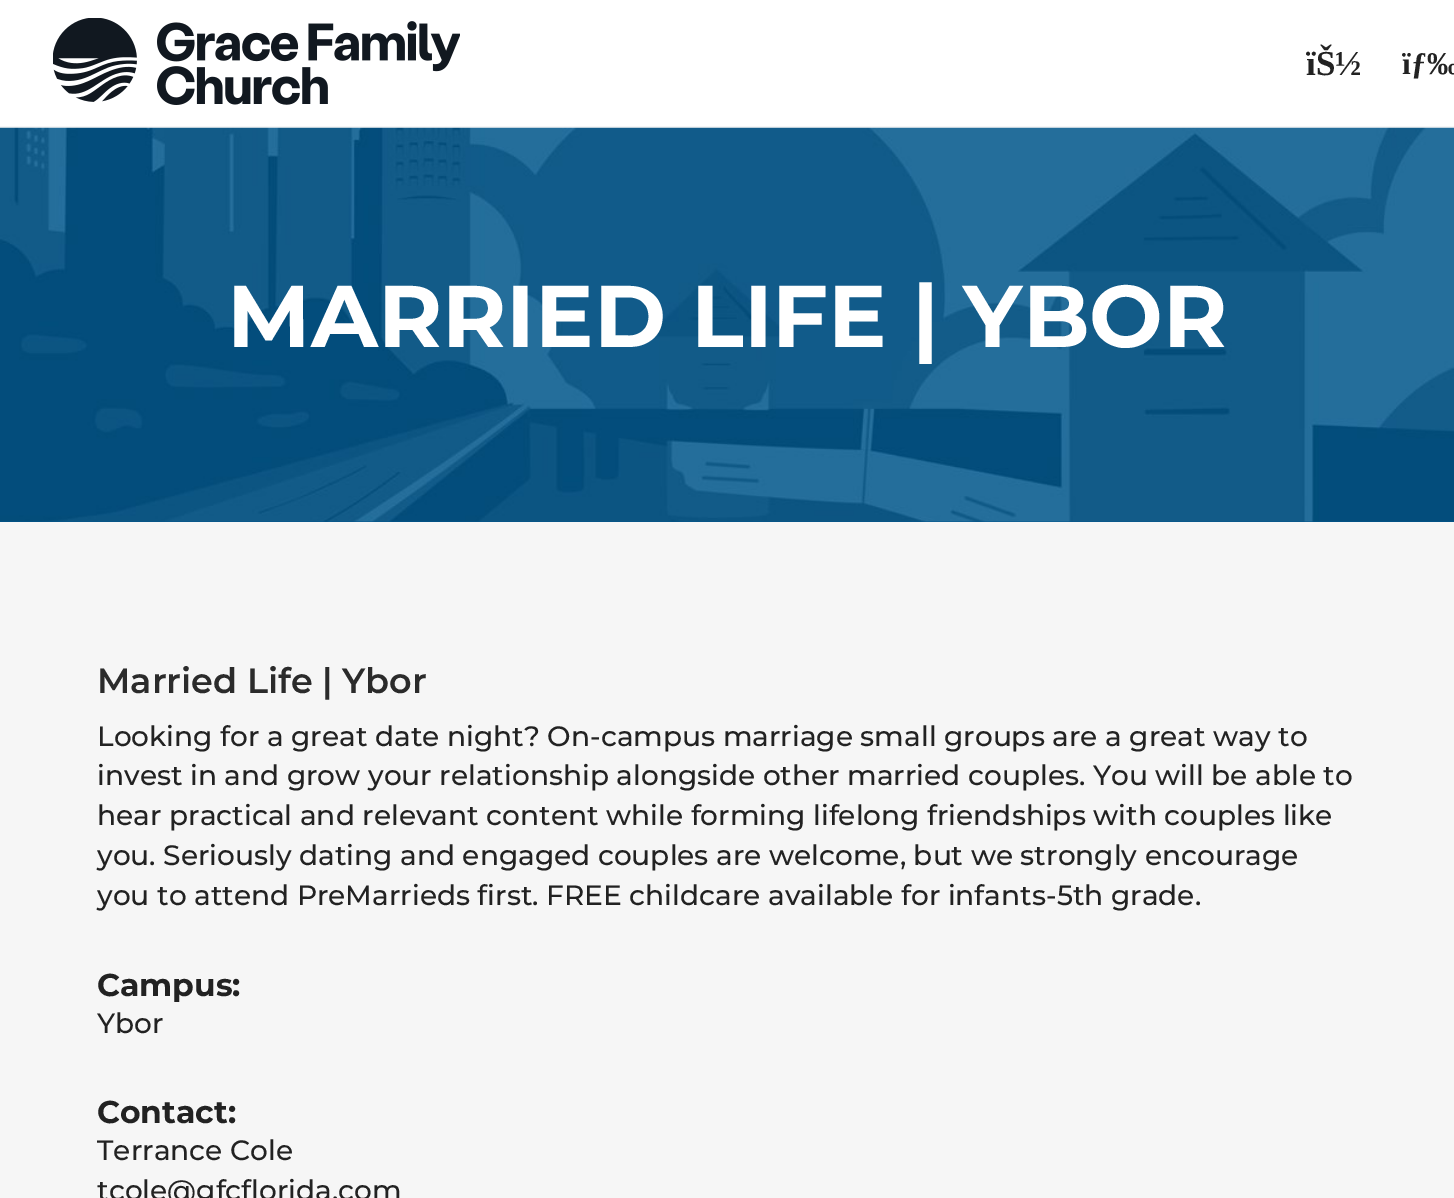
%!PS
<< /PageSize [1454 1198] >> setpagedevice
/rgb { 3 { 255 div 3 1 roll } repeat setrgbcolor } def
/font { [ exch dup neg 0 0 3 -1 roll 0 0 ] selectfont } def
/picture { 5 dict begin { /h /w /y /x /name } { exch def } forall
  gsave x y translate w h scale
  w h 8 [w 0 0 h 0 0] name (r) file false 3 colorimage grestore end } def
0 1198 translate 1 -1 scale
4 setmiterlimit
246 246 246 rgb
0 0 1454 1198 rectfill
255 255 255 rgb
0 0 1454 126 rectfill
(img/1.rgb) 53 18 407 87 picture
1 86 141 rgb
0 521 1454 1 rectfill
(img/2.rgb) 0 127 1454 395 picture
/LiberationSerif-Bold 35 font
34 34 34 rgb
1306 75 moveto (ïŠ½) show
/LiberationSerif-Bold 31.5 font
1402 74 moveto (ïƒ‰) show
/Montserrat-Bold 87.5 font
255 255 255 rgb
227 347 moveto (MARRIED LIFE | YBOR) show
/Montserrat-SemiBold 35 font
43 43 43 rgb
97 693 moveto (Married Life | Ybor) show
/Montserrat-Medium 28 font
34 34 34 rgb
[
  [(Looking for a great date night? On-campus marriage small groups are a great way to) 97 746]
  [(invest in and grow your relationship alongside other married couples. You will be able to) 97 785]
  [(hear practical and relevant content while forming lifelong friendships with couples like) 97 825]
  [(you. Seriously dating and engaged couples are welcome, but we strongly encourage) 97 865]
  [(you to attend PreMarrieds first. FREE childcare available for infants-5th grade.) 97 905]
] { aload pop moveto show } forall
/Montserrat-Bold 31.5 font
97 996 moveto (Campus:) show
/Montserrat-Medium 28 font
97 1033 moveto (Ybor) show
/Montserrat-Bold 31.5 font
97 1123 moveto (Contact:) show
/Montserrat-Medium 28 font
97 1160 moveto (Terrance Cole) show
97 1200 moveto (tcole@gfcflorida.com) show
showpage
